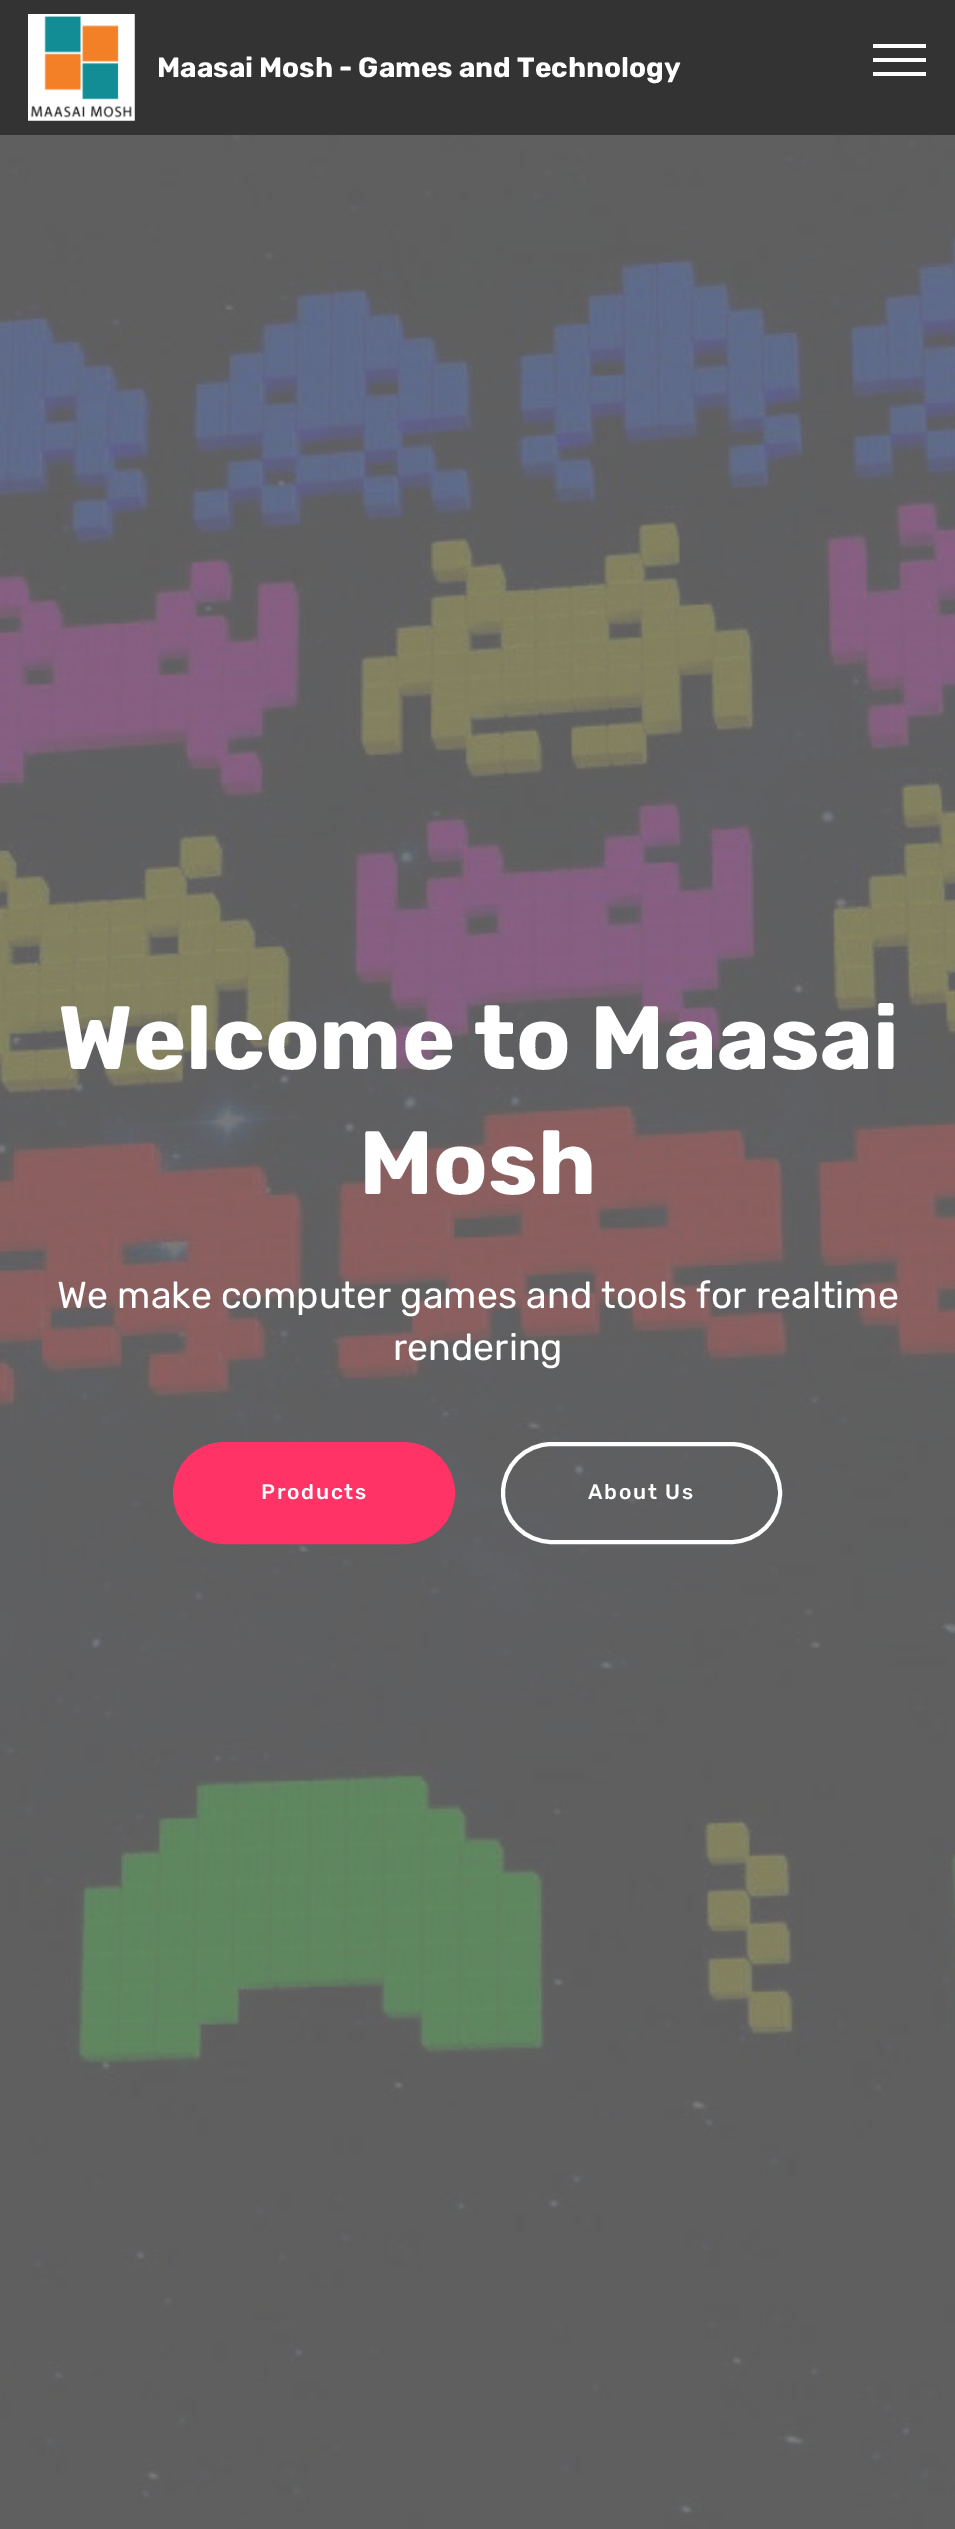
%!PS
<< /PageSize [955 2529] >> setpagedevice
/rgb { 3 { 255 div 3 1 roll } repeat setrgbcolor } def
/font { [ exch dup neg 0 0 3 -1 roll 0 0 ] selectfont } def
/roundrect { 5 dict begin { /r /h /w /y /x } { exch def } forall
  x r add y moveto x w add y 2 copy h add r arct x w add y h add x 1 index r arct
  x y h add x y r arct x y 2 copy exch w add exch r arct closepath end } def
/picture { 5 dict begin { /h /w /y /x /name } { exch def } forall
  gsave x y translate w h scale
  w h 8 [w 0 0 h 0 0] name (r) file false 3 colorimage grestore end } def
0 2529 translate 1 -1 scale
4 setmiterlimit
255 255 255 rgb
0 0 955 2529 rectfill
51 51 51 rgb
0 0 955 135 rectfill
(img/1.rgb) 28 14 107 107 picture
[
  [873 44 53 4 255 255 255]
  [873 58 53 4 255 255 255]
  [873 72 53 4 255 255 255]
] { aload pop rgb rectfill } forall
(img/2.rgb) 0 135 955 2394 picture
255 51 102 rgb
175 1444 278 98 49 roundrect gsave fill grestore
4 setlinewidth
stroke
255 255 255 rgb
503 1444 277 98 49 roundrect stroke
/Rubik-Bold 28 font
157 77 moveto (Maasai Mosh - Games and Technology) show
/Rubik-Bold 89.75 font
58 1069 moveto (Welcome to Maasai) show
359 1194 moveto (Mosh) show
/Rubik-Regular 37.5 font
57 1308 moveto (We make computer games and tools for realtime) show
393 1360 moveto (rendering) show
/Rubik-Medium 21 font
261 1499 moveto 1.75 0 (Products) ashow
588 1499 moveto 1.75 0 (About Us) ashow
showpage
